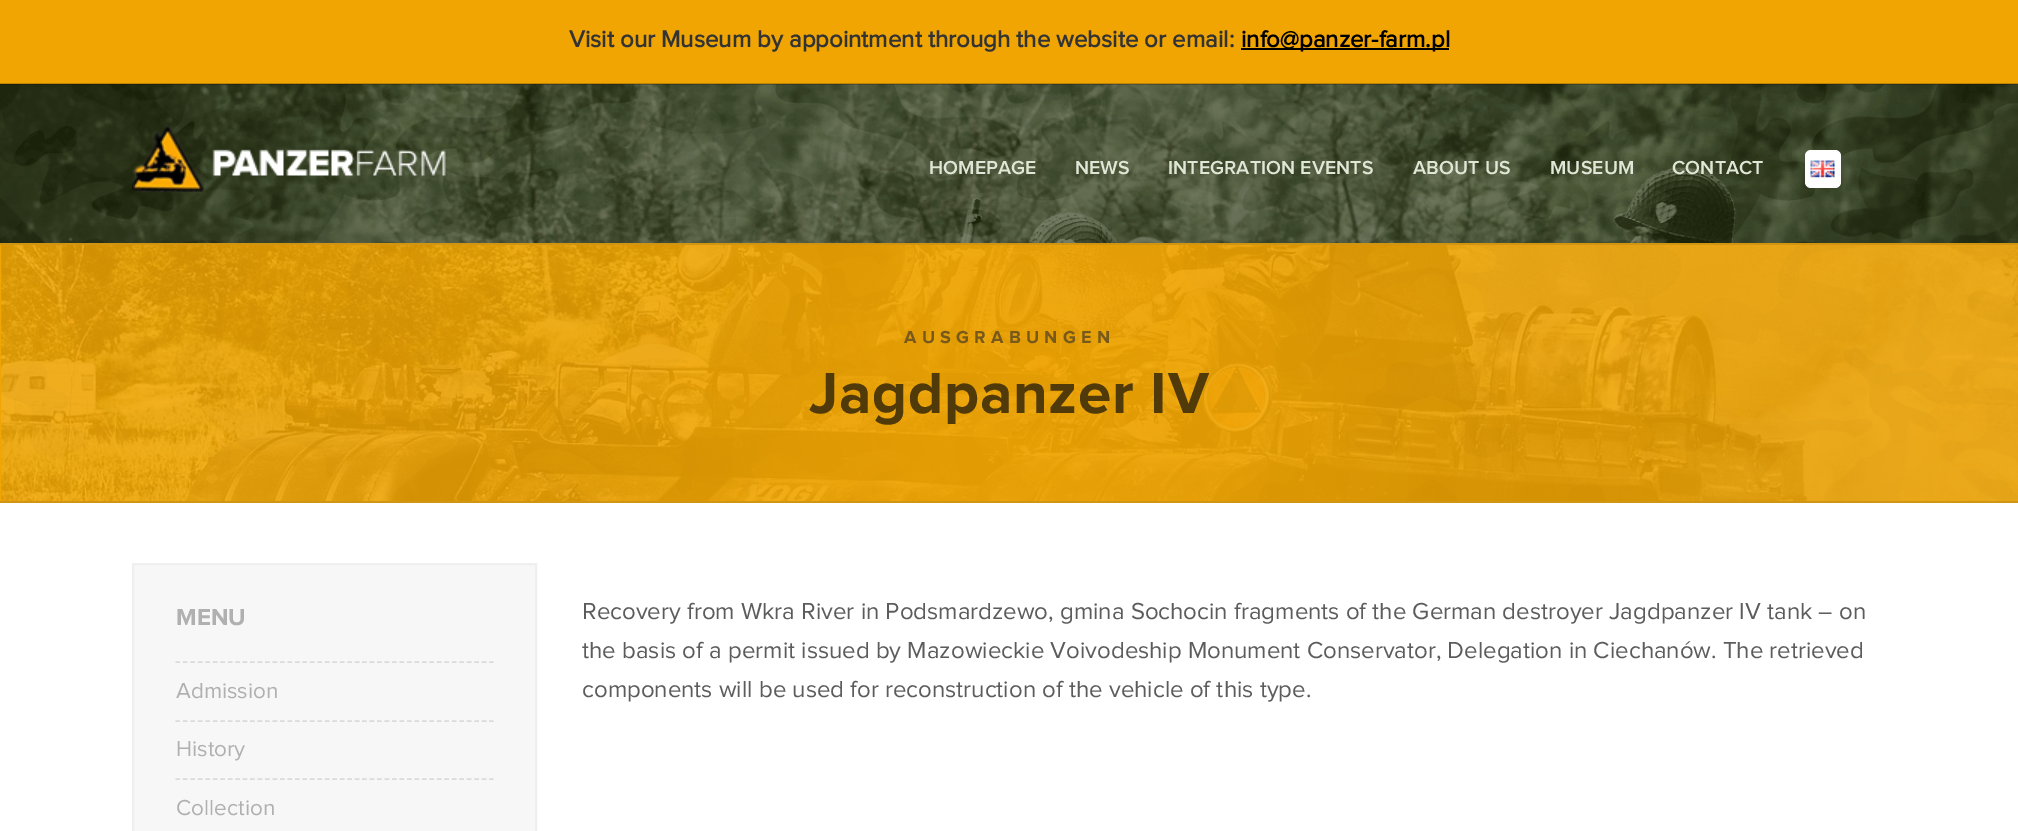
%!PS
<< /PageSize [2018 831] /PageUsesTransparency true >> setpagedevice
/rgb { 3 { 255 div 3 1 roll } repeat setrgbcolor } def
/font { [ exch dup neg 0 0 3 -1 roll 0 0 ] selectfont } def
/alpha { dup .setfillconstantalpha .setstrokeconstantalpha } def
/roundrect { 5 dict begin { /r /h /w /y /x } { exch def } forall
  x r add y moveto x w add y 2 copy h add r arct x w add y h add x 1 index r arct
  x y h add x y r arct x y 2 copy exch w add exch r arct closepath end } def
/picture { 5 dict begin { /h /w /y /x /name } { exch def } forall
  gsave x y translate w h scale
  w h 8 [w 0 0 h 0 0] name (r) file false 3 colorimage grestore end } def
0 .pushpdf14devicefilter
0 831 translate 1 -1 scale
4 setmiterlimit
255 255 255 rgb
0 0 2018 831 rectfill
240 165 3 rgb
0 0 2018 84 rectfill
(img/1.rgb) 0 84 2018 159 picture
0.2 alpha
0 0 0 rgb
0 83 2018 2 rectfill
1 alpha
1241 48 208 2 rectfill
(img/2.rgb) 132 126 314 66 picture
255 255 255 rgb
1805 150 36 38 6 roundrect fill
(img/3.rgb) 1810 160 25 18 picture
240 165 3 rgb
0 245 1 256 rectfill
(img/4.rgb) 1 245 2017 256 picture
210 149 17 rgb
0 243 2018 2 rectfill
0 501 2018 2 rectfill
247 247 247 rgb
133 564 moveto 536 564 lineto 536 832 lineto 133 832 lineto closepath gsave fill grestore
239 239 239 rgb
2 setlinewidth
stroke
218 218 218 rgb
1.5 setlinewidth
[4.5 2.97] 0 setdash
175.5 662 moveto 493.5 662 lineto stroke
175.5 721 moveto 493.5 721 lineto stroke
175.5 779 moveto 493.5 779 lineto stroke
/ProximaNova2-Bold 24 font
51 51 51 rgb
569 47 moveto (Visit our Museum by appointment through the website or email:) show
0 0 0 rgb
1241 47 moveto (info@panzer-farm.pl) show
/ProximaNova-SemiBold 19.5 font
224 231 214 rgb
929 174 moveto 0.1 0 (HOMEPAGE) ashow
1075 174 moveto 0.1 0 (NEWS) ashow
1168 174 moveto 0.1 0 (INTEGRATION EVENTS) ashow
1413 174 moveto 0.1 0 (ABOUT US) ashow
1550 174 moveto 0.1 0 (MUSEUM) ashow
1672 174 moveto 0.1 0 (CONTACT) ashow
/ProximaNova-Bold 18 font
119 90 27 rgb
904 343 moveto 5.25 0 (AUSGRABUNGEN) ashow
/ProximaNova-Bold 60 font
80 58 9 rgb
809 413 moveto 0.75 0 (Jagdpanzer IV) ashow
/ProximaNova-Bold 24 font
176 176 176 rgb
176 625 moveto (MENU) show
/ProximaNova-Regular 22.5 font
[
  [(Admission) 176 698]
  [(History) 176 756]
  [(Collection) 176 815]
] { aload pop moveto show } forall
/ProximaNova-Regular 24 font
93 92 92 rgb
[
  [(Recovery from Wkra River in Podsmardzewo, gmina Sochocin fragments of the German destroyer Jagdpanzer IV tank – on) 582 619]
  [(the basis of a permit issued by Mazowieckie Voivodeship Monument Conservator, Delegation in Ciechanów. The retrieved) 582 658]
  [(components will be used for reconstruction of the vehicle of this type.) 582 697]
] { aload pop moveto show } forall
.poppdf14devicefilter showpage
